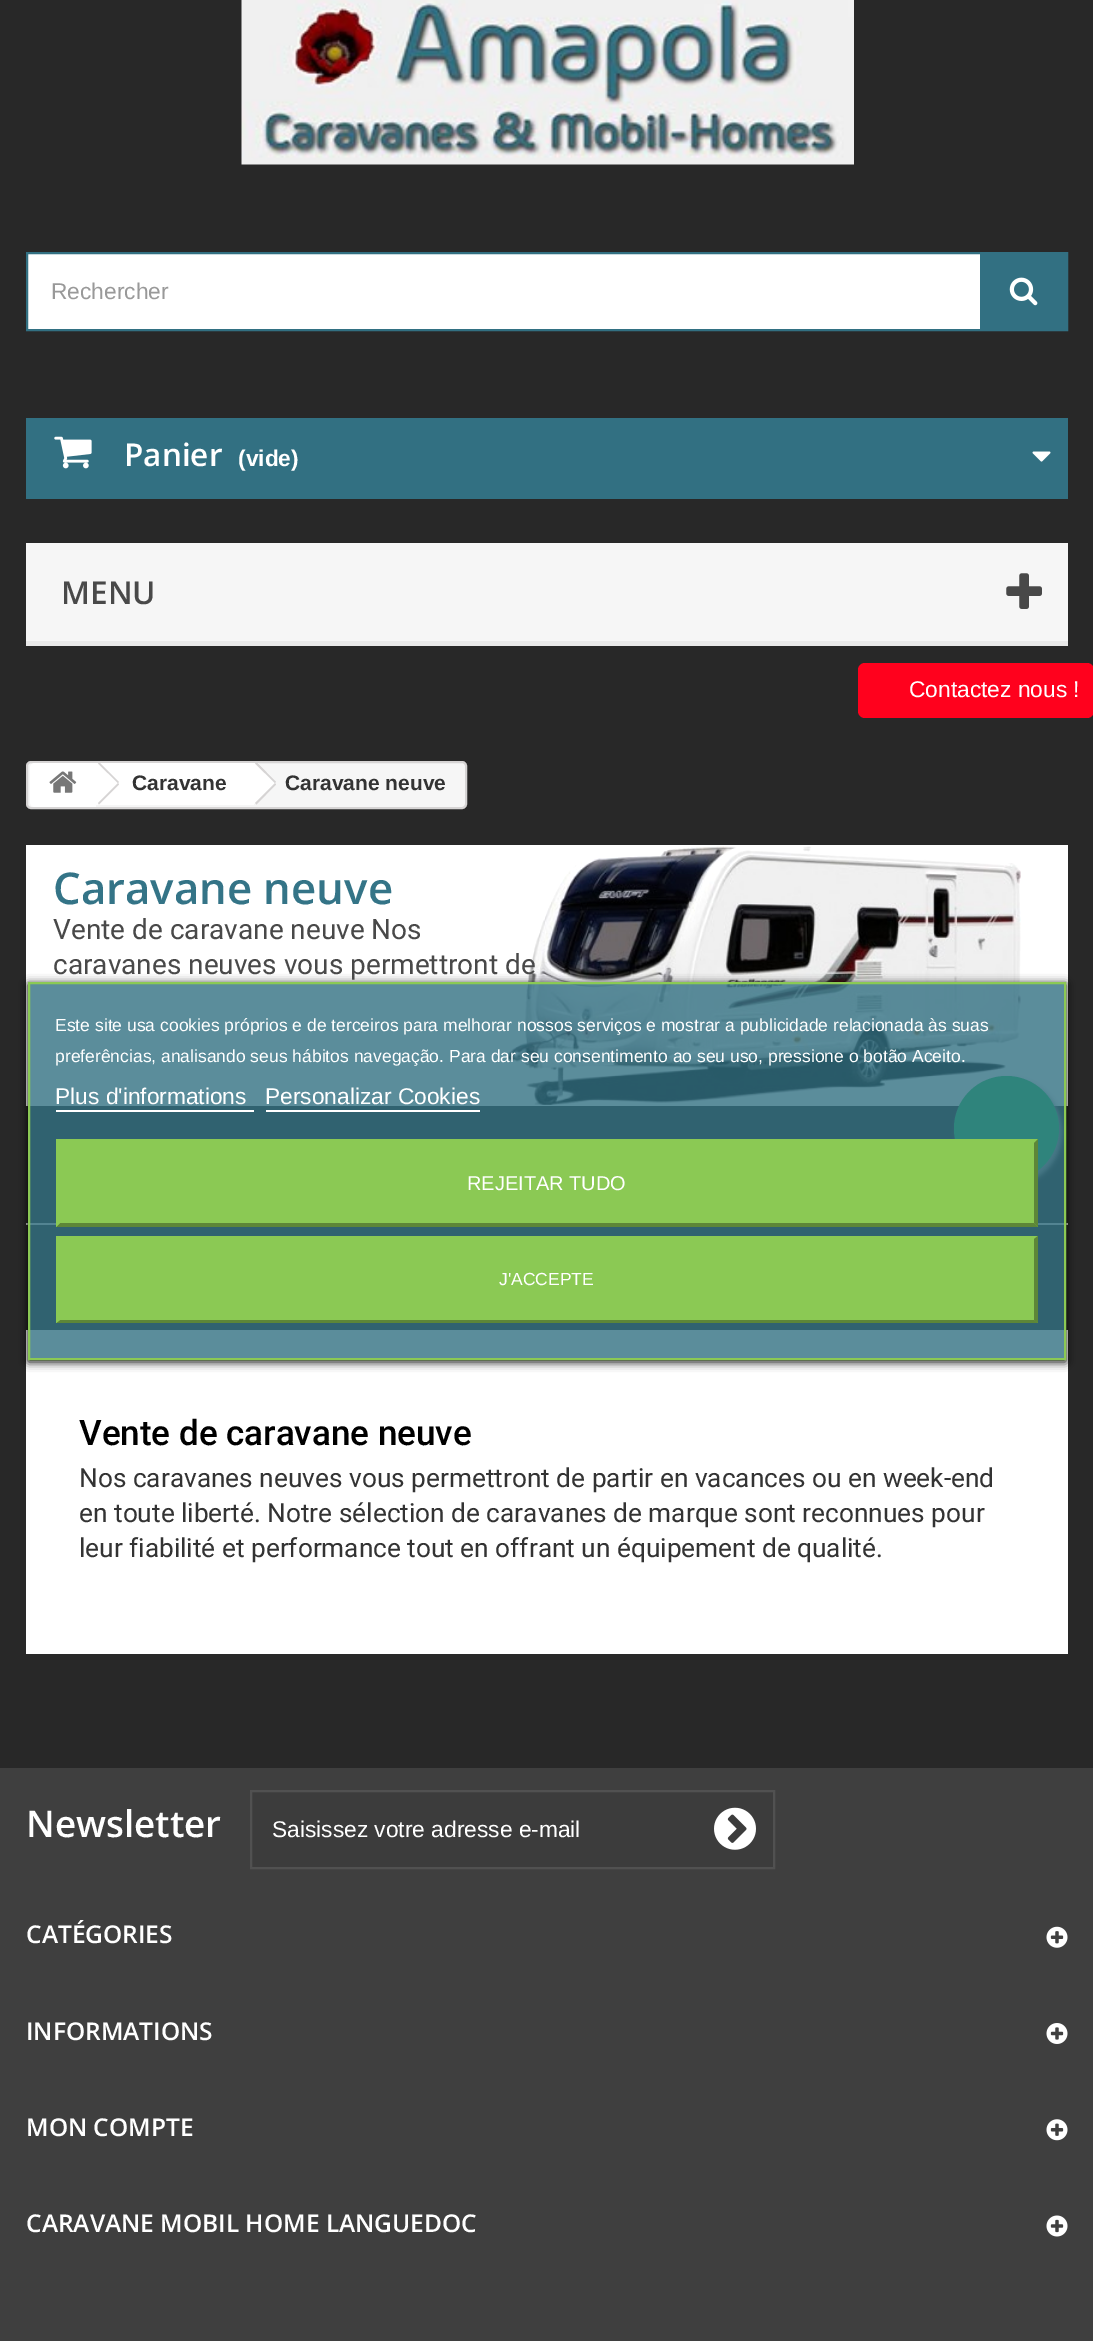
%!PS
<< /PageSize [1093 2341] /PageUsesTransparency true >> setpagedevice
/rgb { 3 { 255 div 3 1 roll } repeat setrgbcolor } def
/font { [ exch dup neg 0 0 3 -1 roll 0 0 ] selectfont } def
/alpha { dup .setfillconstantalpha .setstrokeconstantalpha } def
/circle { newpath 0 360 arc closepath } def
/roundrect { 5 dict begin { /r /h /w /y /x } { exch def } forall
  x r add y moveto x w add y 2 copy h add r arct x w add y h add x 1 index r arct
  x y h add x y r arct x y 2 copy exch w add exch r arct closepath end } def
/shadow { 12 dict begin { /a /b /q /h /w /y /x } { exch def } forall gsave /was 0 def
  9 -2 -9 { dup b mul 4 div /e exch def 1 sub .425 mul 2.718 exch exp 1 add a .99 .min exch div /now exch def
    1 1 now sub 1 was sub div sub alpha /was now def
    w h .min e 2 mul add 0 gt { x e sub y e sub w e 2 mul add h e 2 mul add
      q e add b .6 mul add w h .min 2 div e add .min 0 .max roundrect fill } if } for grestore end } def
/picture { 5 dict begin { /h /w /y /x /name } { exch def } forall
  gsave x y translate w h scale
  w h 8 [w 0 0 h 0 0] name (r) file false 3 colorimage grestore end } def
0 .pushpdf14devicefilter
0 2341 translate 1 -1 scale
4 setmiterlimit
40 40 40 rgb
0 0 1093 2341 rectfill
(img/1.rgb) 241 0 613 165 picture
255 255 255 rgb
28 254 952 75 rectfill
50 112 130 rgb
2 setlinewidth
27 253 1040 77 rectstroke
980 254 86 75 rectfill
(img/2.rgb) 1009 277 29 29 picture
26 418 1042 81 rectfill
(img/3.rgb) 54 436 38 33 picture
(img/4.rgb) 1032 451 19 11 picture
246 246 246 rgb
26 543 1042 98 rectfill
233 233 233 rgb
26 641 1042 5 rectfill
(img/5.rgb) 1006 573 36 36 picture
255 1 29 rgb
858 663 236 55 7 roundrect fill
255 255 255 rgb
26 845 1042 261 rectfill
(img/7.rgb) 506 846 515 259 picture
153 153 153 rgb
957 1080 105 105 52.5 2.5 1 shadow
37 211 102 rgb
1006.5 1128.5 52.5 circle fill
246 246 246 rgb
27 762 439 46 4 roundrect gsave fill grestore
214 212 212 rgb
stroke
255 255 255 rgb
35 763 moveto 96 763 lineto 96 807 lineto 35 807 lineto 32 807 30 805 30 802 curveto 30 768 lineto 30 765 32 763 35 763 curveto closepath fill
(img/6.rgb) 49 771 28 22 picture
96 763 158 42 rectfill
214 212 212 rgb
100 763 moveto 119 782 lineto 118 783 lineto 98 763.5 lineto 98.5 763 lineto closepath 118 783 moveto 119 784.5 lineto 99 804.5 lineto 98 803 lineto closepath fill
255 255 255 rgb
258 763 moveto 253 763 lineto 235 781 lineto 234 782 234 784 235 786 curveto 253 803 lineto 254 804 256 804 258 803 curveto 275 786 lineto 276 784 276 782 275 781 curveto closepath fill
214 212 212 rgb
257.5 763 moveto 276 782 lineto 275 783 lineto 255 763.5 lineto 255.5 763 lineto closepath 275 783 moveto 276 784.5 lineto 256.5 804.5 lineto 255 803 lineto closepath fill
[
  [26 1223 1042 2 214 212 212]
  [26 1330 1042 324 255 255 255]
  [0 1768 1093 573 63 63 63]
] { aload pop rgb rectfill } forall
gsave
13 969 moveto 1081 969 lineto 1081 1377 lineto 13 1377 lineto closepath 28 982 moveto 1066 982 lineto 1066 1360 lineto 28 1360 lineto closepath eoclip newpath
0 0 0 rgb
28 984 1038 378 0 4.5 1 shadow
grestore
0.8 alpha
50 112 130 rgb
29 983 moveto 1065 983 lineto 1065 1359 lineto 29 1359 lineto closepath fill
1 alpha
139 201 84 rgb
29 983 moveto 1065 983 lineto 1065 1359 lineto 29 1359 lineto closepath stroke
[
  [56 1110 198 2 255 255 255]
  [266 1110 214 2 255 255 255]
  [56 1139 982 88 139 201 84]
] { aload pop rgb rectfill } forall
93 134 56 rgb
1038 1139 moveto 1038 1227 lineto 1034 1223 lineto 1034 1143 lineto closepath fill
1038 1227 moveto 56 1227 lineto 60 1223 lineto 1034 1223 lineto closepath fill
139 201 84 rgb
56 1227 moveto 56 1139 lineto 60 1143 lineto 60 1223 lineto closepath fill
56 1236 982 87 rectfill
93 134 56 rgb
1038 1236 moveto 1038 1323 lineto 1034 1320 lineto 1034 1239 lineto closepath fill
1038 1323 moveto 56 1323 lineto 60 1320 lineto 1034 1320 lineto closepath fill
139 201 84 rgb
56 1323 moveto 56 1236 lineto 60 1239 lineto 60 1320 lineto closepath fill
60 60 60 rgb
251 1791 moveto 774 1791 lineto 774 1868 lineto 251 1868 lineto closepath gsave fill grestore
81 81 81 rgb
stroke
(img/8.rgb) 714 1807 42 43 picture
(img/9.rgb) 1046 1926 22 22 picture
(img/10.rgb) 1046 2023 22 21 picture
(img/11.rgb) 1046 2119 22 22 picture
(img/12.rgb) 1046 2215 22 22 picture
/LiberationSans-Regular 22.75 font
153 153 153 rgb
51 299 moveto (Rechercher) show
/OpenSans-SemiBold 31.5 font
255 255 255 rgb
124 466 moveto (Panier) show
/LiberationSans-Bold 22.75 font
238 466 moveto (\(vide\)) show
/OpenSans-SemiBold 31.5 font
73 73 73 rgb
61 604 moveto (MENU) show
/LiberationSans-Regular 22.75 font
255 255 255 rgb
909 697 moveto (Contactez nous !) show
/LiberationSans-Bold 21 font
51 51 51 rgb
132 790 moveto (Caravane) show
285 790 moveto (Caravane neuve) show
/OpenSans-SemiBold 43.75 font
52 116 135 rgb
53 904 moveto (Caravane neuve) show
/Roboto-Regular 28 font
73 73 73 rgb
53 939 moveto (Vente de caravane neuve Nos) show
53 974 moveto (caravanes neuves vous permettront de) show
/Roboto-Medium 35 font
0 0 0 rgb
79 1445 moveto (Vente de caravane neuve) show
/Roboto-Regular 26.25 font
51 51 51 rgb
[
  [(Nos caravanes neuves vous permettront de partir en vacances ou en week-end) 79 1487]
  [(en toute liberté. Notre sélection de caravanes de marque sont reconnues pour) 79 1522]
  [(leur fiabilité et performance tout en offrant un équipement de qualité.) 79 1557]
] { aload pop moveto show } forall
/LiberationSans-Regular 17.5 font
255 255 255 rgb
55 1031 moveto (Este site usa cookies próprios e de terceiros para melhorar nossos serviços e mostrar a publicidade relacionada às suas) show
55 1062 moveto (preferências, analisando seus hábitos navegação. Para dar seu consentimento ao seu uso, pressione o botão Aceito.) show
/LiberationSans-Regular 22.75 font
55 1104 moveto (Plus d'informations) show
265 1104 moveto (Personalizar Cookies) show
/LiberationSans-Regular 20 font
467 1190 moveto (REJEITAR TUDO) show
/LiberationSans-Regular 17.5 font
499 1285 moveto (J'ACCEPTE) show
/OpenSans-SemiBold 36.75 font
26 1837 moveto (Newsletter) show
/LiberationSans-Regular 22.75 font
272 1837 moveto (Saisissez votre adresse e-mail) show
/OpenSans-SemiBold 24.5 font
[
  [(CATÉGORIES) 26 1943]
  [(INFORMATIONS) 26 2040]
  [(MON COMPTE) 26 2136]
  [(CARAVANE MOBIL HOME LANGUEDOC) 26 2232]
] { aload pop moveto show } forall
.poppdf14devicefilter showpage
